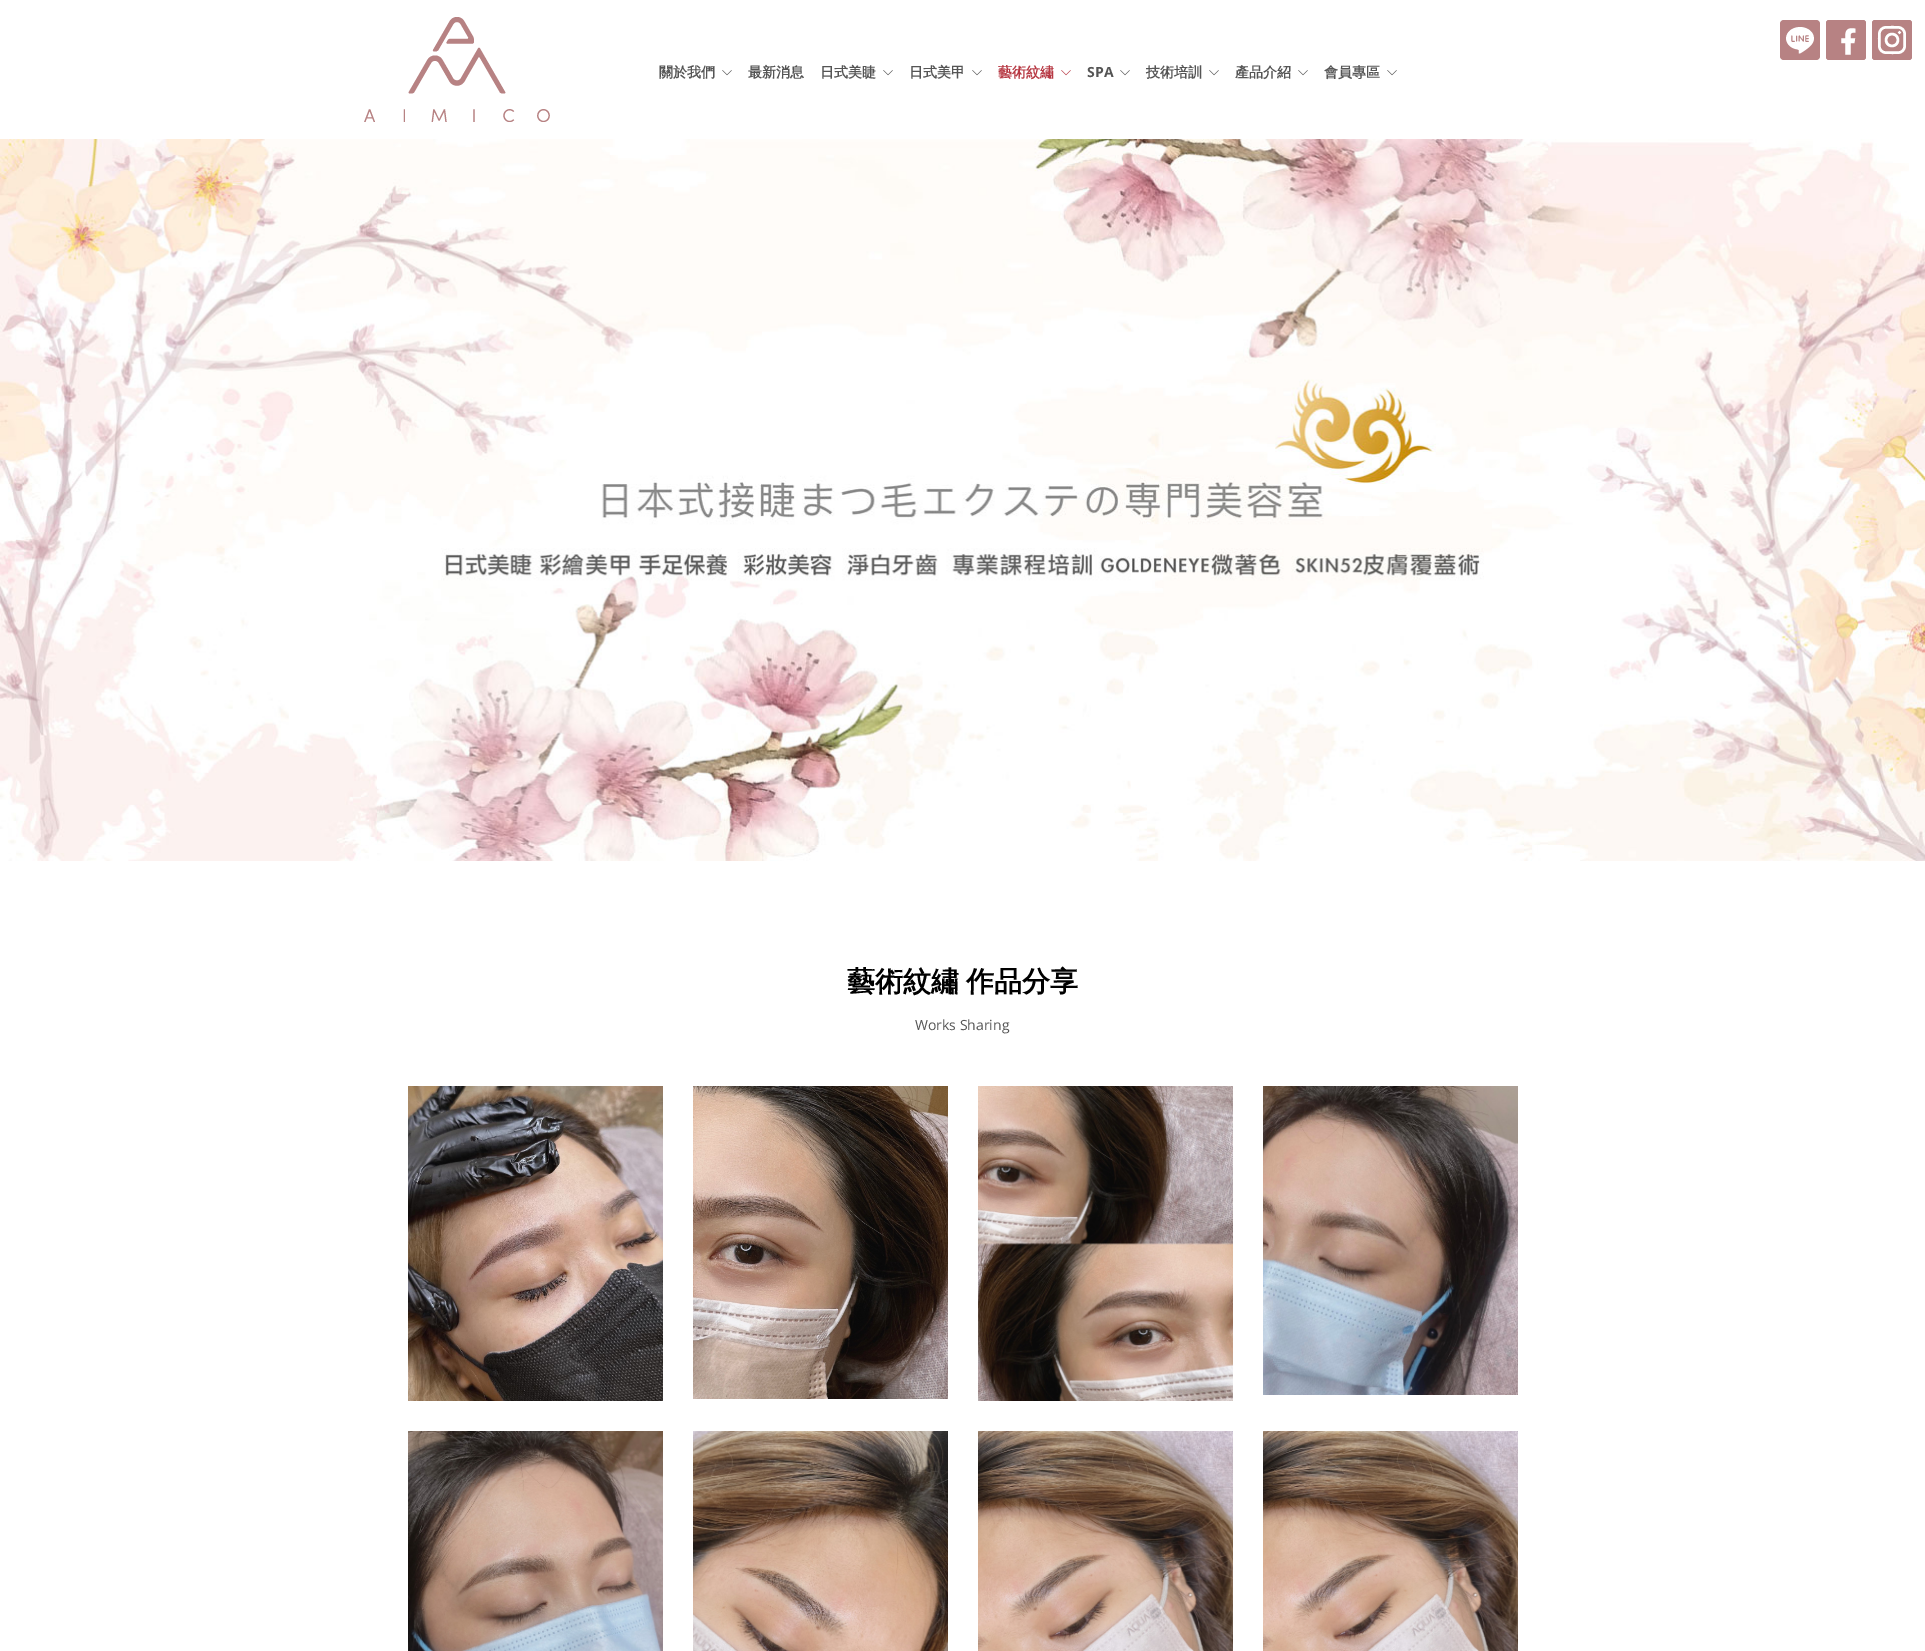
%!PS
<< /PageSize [1925 1651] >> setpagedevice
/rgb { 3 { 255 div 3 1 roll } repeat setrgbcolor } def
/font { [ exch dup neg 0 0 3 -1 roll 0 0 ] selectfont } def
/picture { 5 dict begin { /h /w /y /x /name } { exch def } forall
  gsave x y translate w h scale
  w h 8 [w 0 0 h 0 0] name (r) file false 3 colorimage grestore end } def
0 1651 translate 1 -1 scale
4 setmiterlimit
255 255 255 rgb
0 0 1925 1651 rectfill
(img/1.rgb) 1780 20 40 40 picture
(img/2.rgb) 1826 20 40 40 picture
(img/3.rgb) 1872 20 40 40 picture
(img/4.rgb) 364 17 186 105 picture
(img/5.rgb) 722 70 10 6 picture
(img/5.rgb) 883 70 10 6 picture
(img/5.rgb) 972 70 10 6 picture
(img/6.rgb) 1061 70 10 6 picture
(img/5.rgb) 1120 70 10 6 picture
(img/5.rgb) 1209 70 10 6 picture
(img/5.rgb) 1298 70 10 6 picture
(img/5.rgb) 1387 70 10 6 picture
(img/7.rgb) 0 139 1925 722 picture
(img/8.rgb) 408 1086 255 315 picture
(img/9.rgb) 693 1086 255 313 picture
(img/10.rgb) 978 1086 255 315 picture
(img/11.rgb) 1263 1086 255 309 picture
(img/12.rgb) 408 1431 255 220 picture
(img/13.rgb) 693 1431 255 220 picture
(img/14.rgb) 978 1431 255 220 picture
(img/14.rgb) 1263 1431 255 220 picture
/WenQuanYiZenHei-Bold 14 font
85 85 85 rgb
[
  [(關於我們) 659 77]
  [(最新消息) 748 77]
  [(日式美睫) 820 77]
  [(日式美甲) 909 77]
] { aload pop moveto show } forall
183 57 68 rgb
998 77 moveto (藝術紋繡) show
/OpenSans-Bold 14 font
85 85 85 rgb
1087 77 moveto (SPA) show
/WenQuanYiZenHei-Bold 14 font
[
  [(技術培訓) 1146 77]
  [(產品介紹) 1235 77]
  [(會員專區) 1324 77]
] { aload pop moveto show } forall
/WenQuanYiZenHei-Bold 28 font
0 0 0 rgb
847 991 moveto -1 0 32 (藝術紋繡 作品分享) widthshow
/OpenSans-Regular 14 font
85 85 85 rgb
915 1030 moveto (Works Sharing) show
showpage
